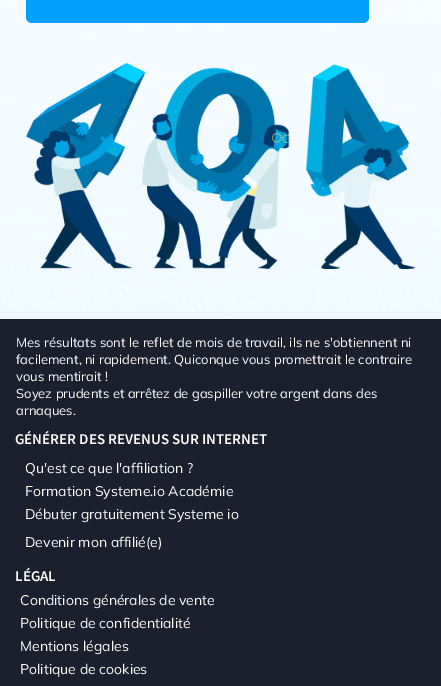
%!PS
<< /PageSize [441 686] >> setpagedevice
/rgb { 3 { 255 div 3 1 roll } repeat setrgbcolor } def
/font { [ exch dup neg 0 0 3 -1 roll 0 0 ] selectfont } def
/roundrect { 5 dict begin { /r /h /w /y /x } { exch def } forall
  x r add y moveto x w add y 2 copy h add r arct x w add y h add x 1 index r arct
  x y h add x y r arct x y 2 copy exch w add exch r arct closepath end } def
/picture { 5 dict begin { /h /w /y /x /name } { exch def } forall
  gsave x y translate w h scale
  w h 8 [w 0 0 h 0 0] name (r) file false 3 colorimage grestore end } def
0 686 translate 1 -1 scale
4 setmiterlimit
255 255 255 rgb
0 0 441 686 rectfill
(img/2.rgb) 0 0 441 319 picture
0 160 255 rgb
26 -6 343 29 6 roundrect fill
(img/1.rgb) 26 63 389 206 picture
28 32 46 rgb
0 319 441 367 rectfill
/Mulish-Regular 13 font
255 255 255 rgb
[
  [(Mes résultats sont le reflet de mois de travail, ils ne s'obtiennent ni) 16 347]
  [(facilement, ni rapidement. Quiconque vous promettrait le contraire) 16 364]
  [(vous mentirait !) 16 381]
  [(Soyez prudents et arrêtez de gaspiller votre argent dans des) 16 398]
  [(arnaques.) 16 415]
] { aload pop moveto show } forall
/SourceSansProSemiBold-SemiBold 15 font
15 444 moveto (GÉNÉRER DES REVENUS SUR INTERNET) show
/Mulish-Regular 14 font
[
  [(Qu'est ce que l'affiliation ?) 25 473]
  [(Formation Systeme.io Académie) 25 496]
  [(Débuter gratuitement Systeme io) 25 519]
  [(Devenir mon affilié\(e\)) 25 547]
] { aload pop moveto show } forall
/SourceSansProSemiBold-SemiBold 15 font
15 581 moveto (LÉGAL) show
/Mulish-Regular 14 font
[
  [(Conditions générales de vente) 20 605]
  [(Politique de confidentialité) 20 628]
  [(Mentions légales) 20 651]
  [(Politique de cookies) 20 674]
] { aload pop moveto show } forall
showpage
